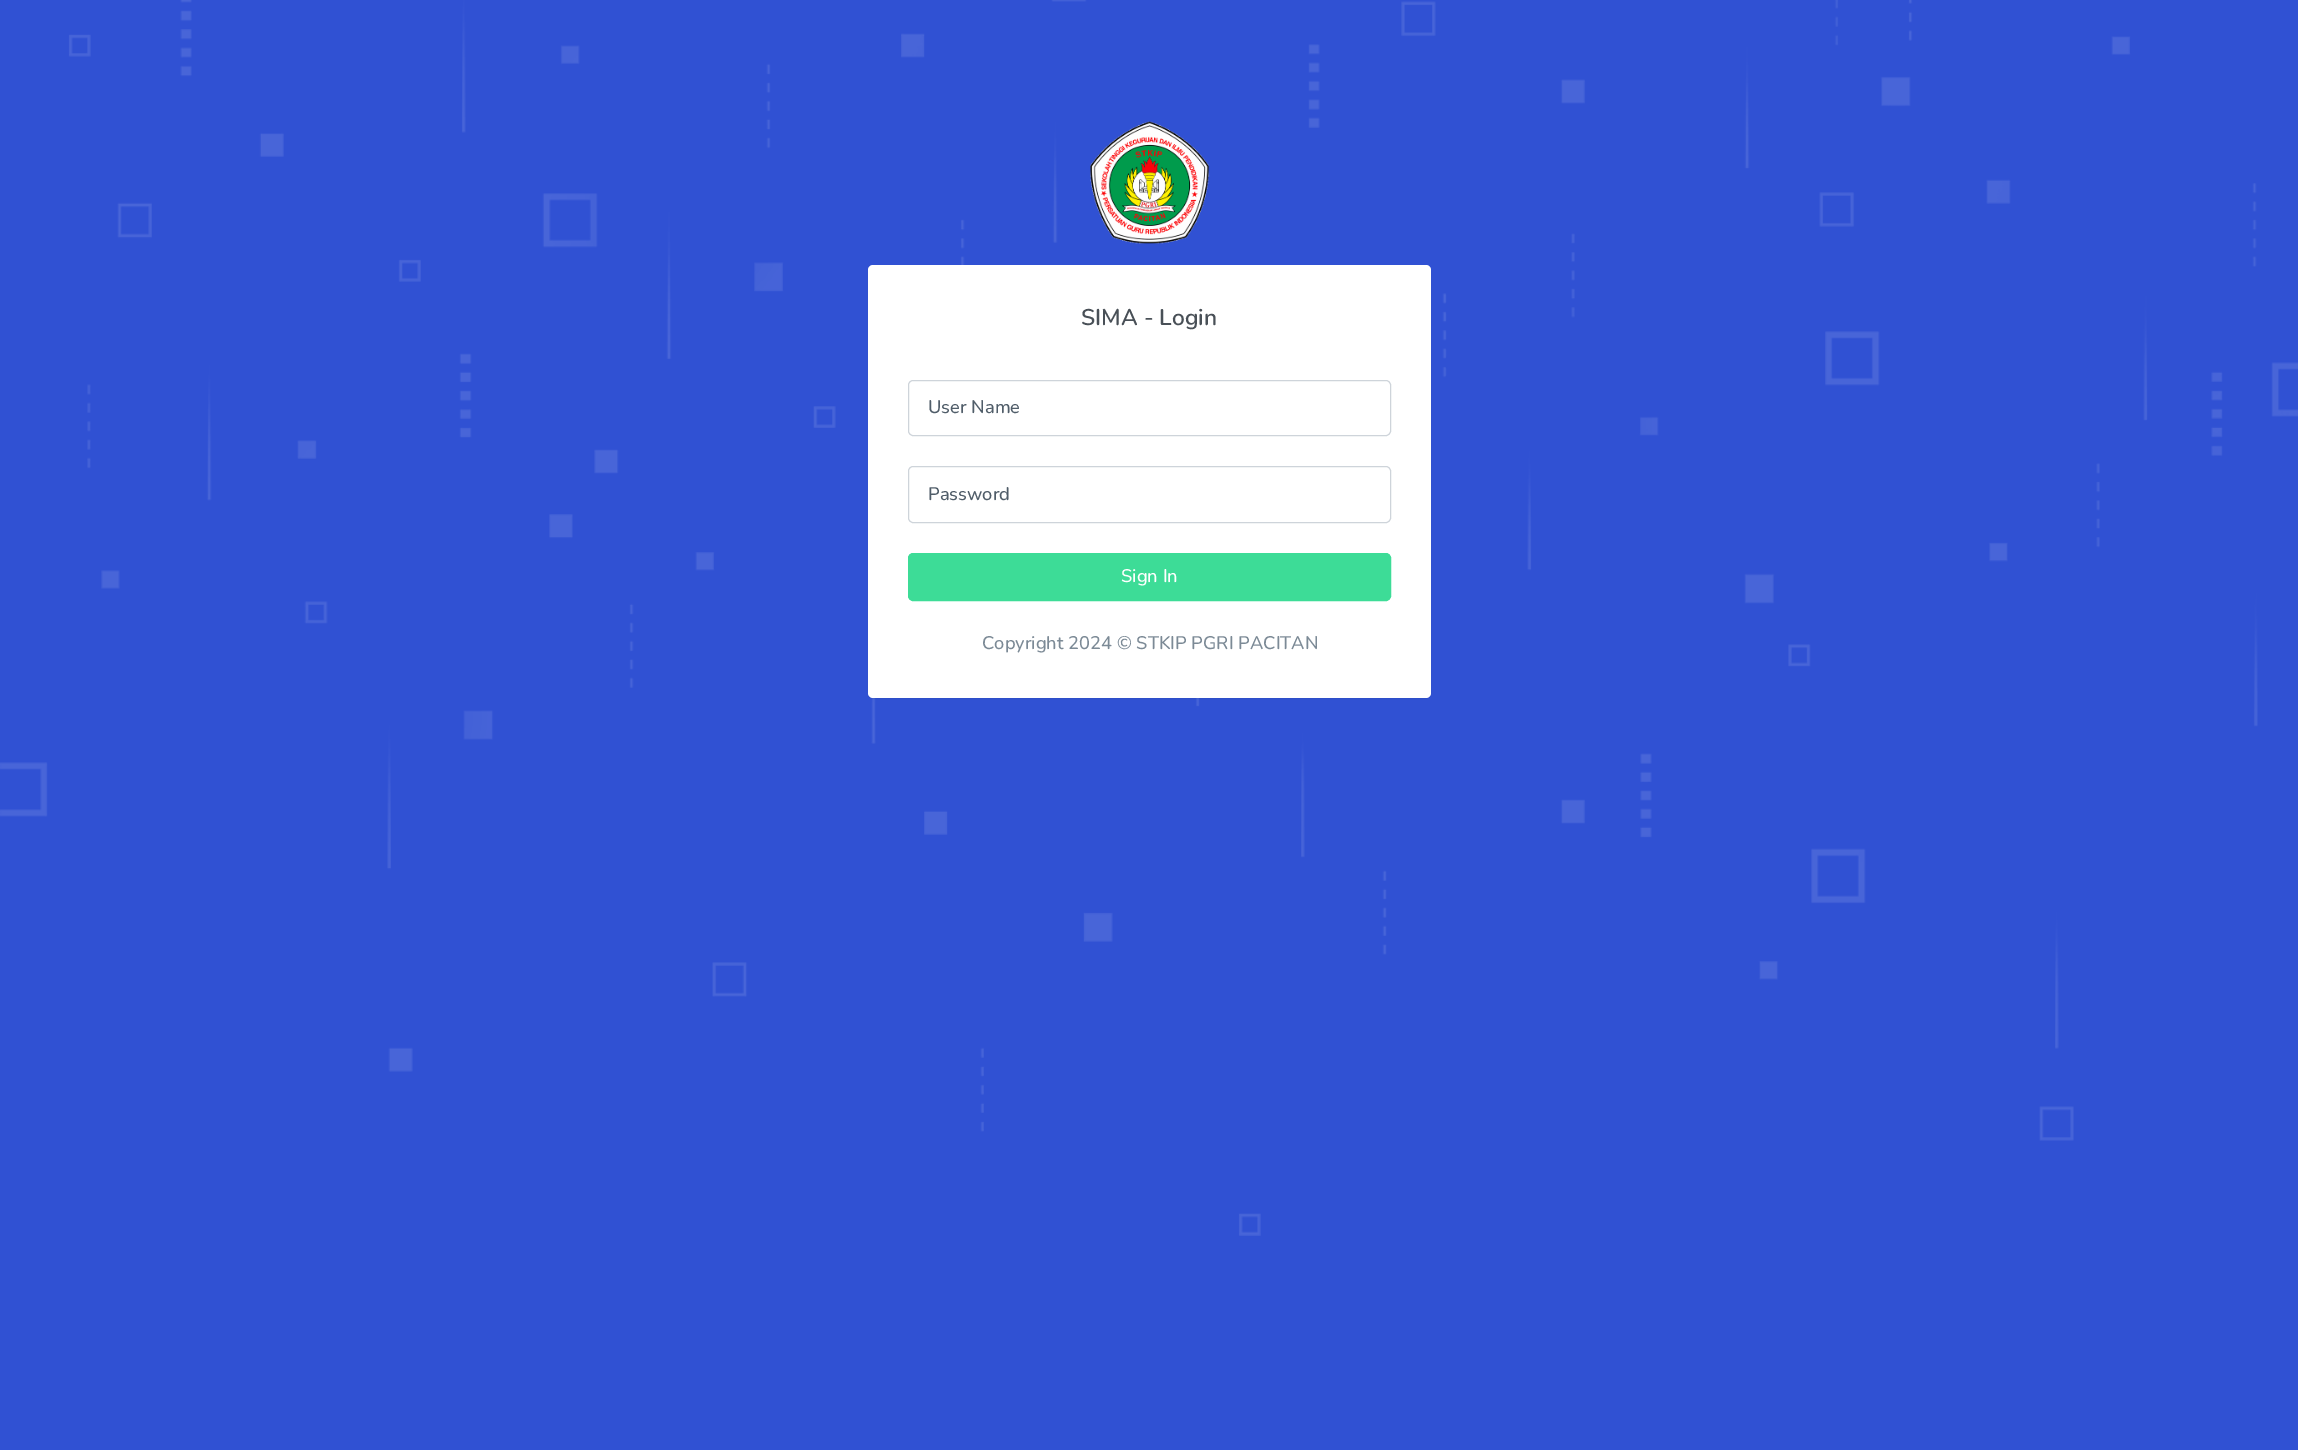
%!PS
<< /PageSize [2298 1450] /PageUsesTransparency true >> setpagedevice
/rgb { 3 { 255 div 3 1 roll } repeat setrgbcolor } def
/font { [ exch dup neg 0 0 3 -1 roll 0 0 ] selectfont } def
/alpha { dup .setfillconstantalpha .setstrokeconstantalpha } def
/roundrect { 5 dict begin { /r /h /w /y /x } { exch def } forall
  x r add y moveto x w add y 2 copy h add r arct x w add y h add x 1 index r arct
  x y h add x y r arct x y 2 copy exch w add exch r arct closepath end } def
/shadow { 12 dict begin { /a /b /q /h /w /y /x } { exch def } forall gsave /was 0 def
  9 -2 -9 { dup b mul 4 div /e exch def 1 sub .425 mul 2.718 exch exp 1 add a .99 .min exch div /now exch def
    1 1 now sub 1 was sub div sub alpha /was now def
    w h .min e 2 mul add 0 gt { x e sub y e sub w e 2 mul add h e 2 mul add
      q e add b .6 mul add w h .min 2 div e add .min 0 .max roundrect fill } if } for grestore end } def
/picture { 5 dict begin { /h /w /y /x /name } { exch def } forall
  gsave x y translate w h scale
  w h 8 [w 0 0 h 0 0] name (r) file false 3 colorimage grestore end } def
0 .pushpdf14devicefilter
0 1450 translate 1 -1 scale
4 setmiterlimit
48 81 211 rgb
0 0 2298 1450 rectfill
(img/1.rgb) 0 0 2298 1236 picture
(img/2.rgb) 1090 121 120 123 picture
0 0 0 rgb
868 266 563 433 5 0.5 0.05 shadow
255 255 255 rgb
868 265 563 433 5 roundrect fill
206 212 218 rgb
908.5 380.5 482 55 4.5 roundrect stroke
908.5 466.5 482 56 4.5 roundrect stroke
61 220 151 rgb
908.5 553.5 482 47 4.5 roundrect gsave fill grestore
stroke
/Nunito-SemiBold 22.75 font
73 80 87 rgb
1081 325 moveto (SIMA - Login) show
/Nunito-Medium 18.25 font
80 93 105 rgb
928 413 moveto (User Name) show
928 500 moveto (Password) show
255 255 255 rgb
1121 582 moveto (Sign In) show
124 138 150 rgb
982 649 moveto (Copyright 2024 © STKIP PGRI PACITAN) show
.poppdf14devicefilter showpage
